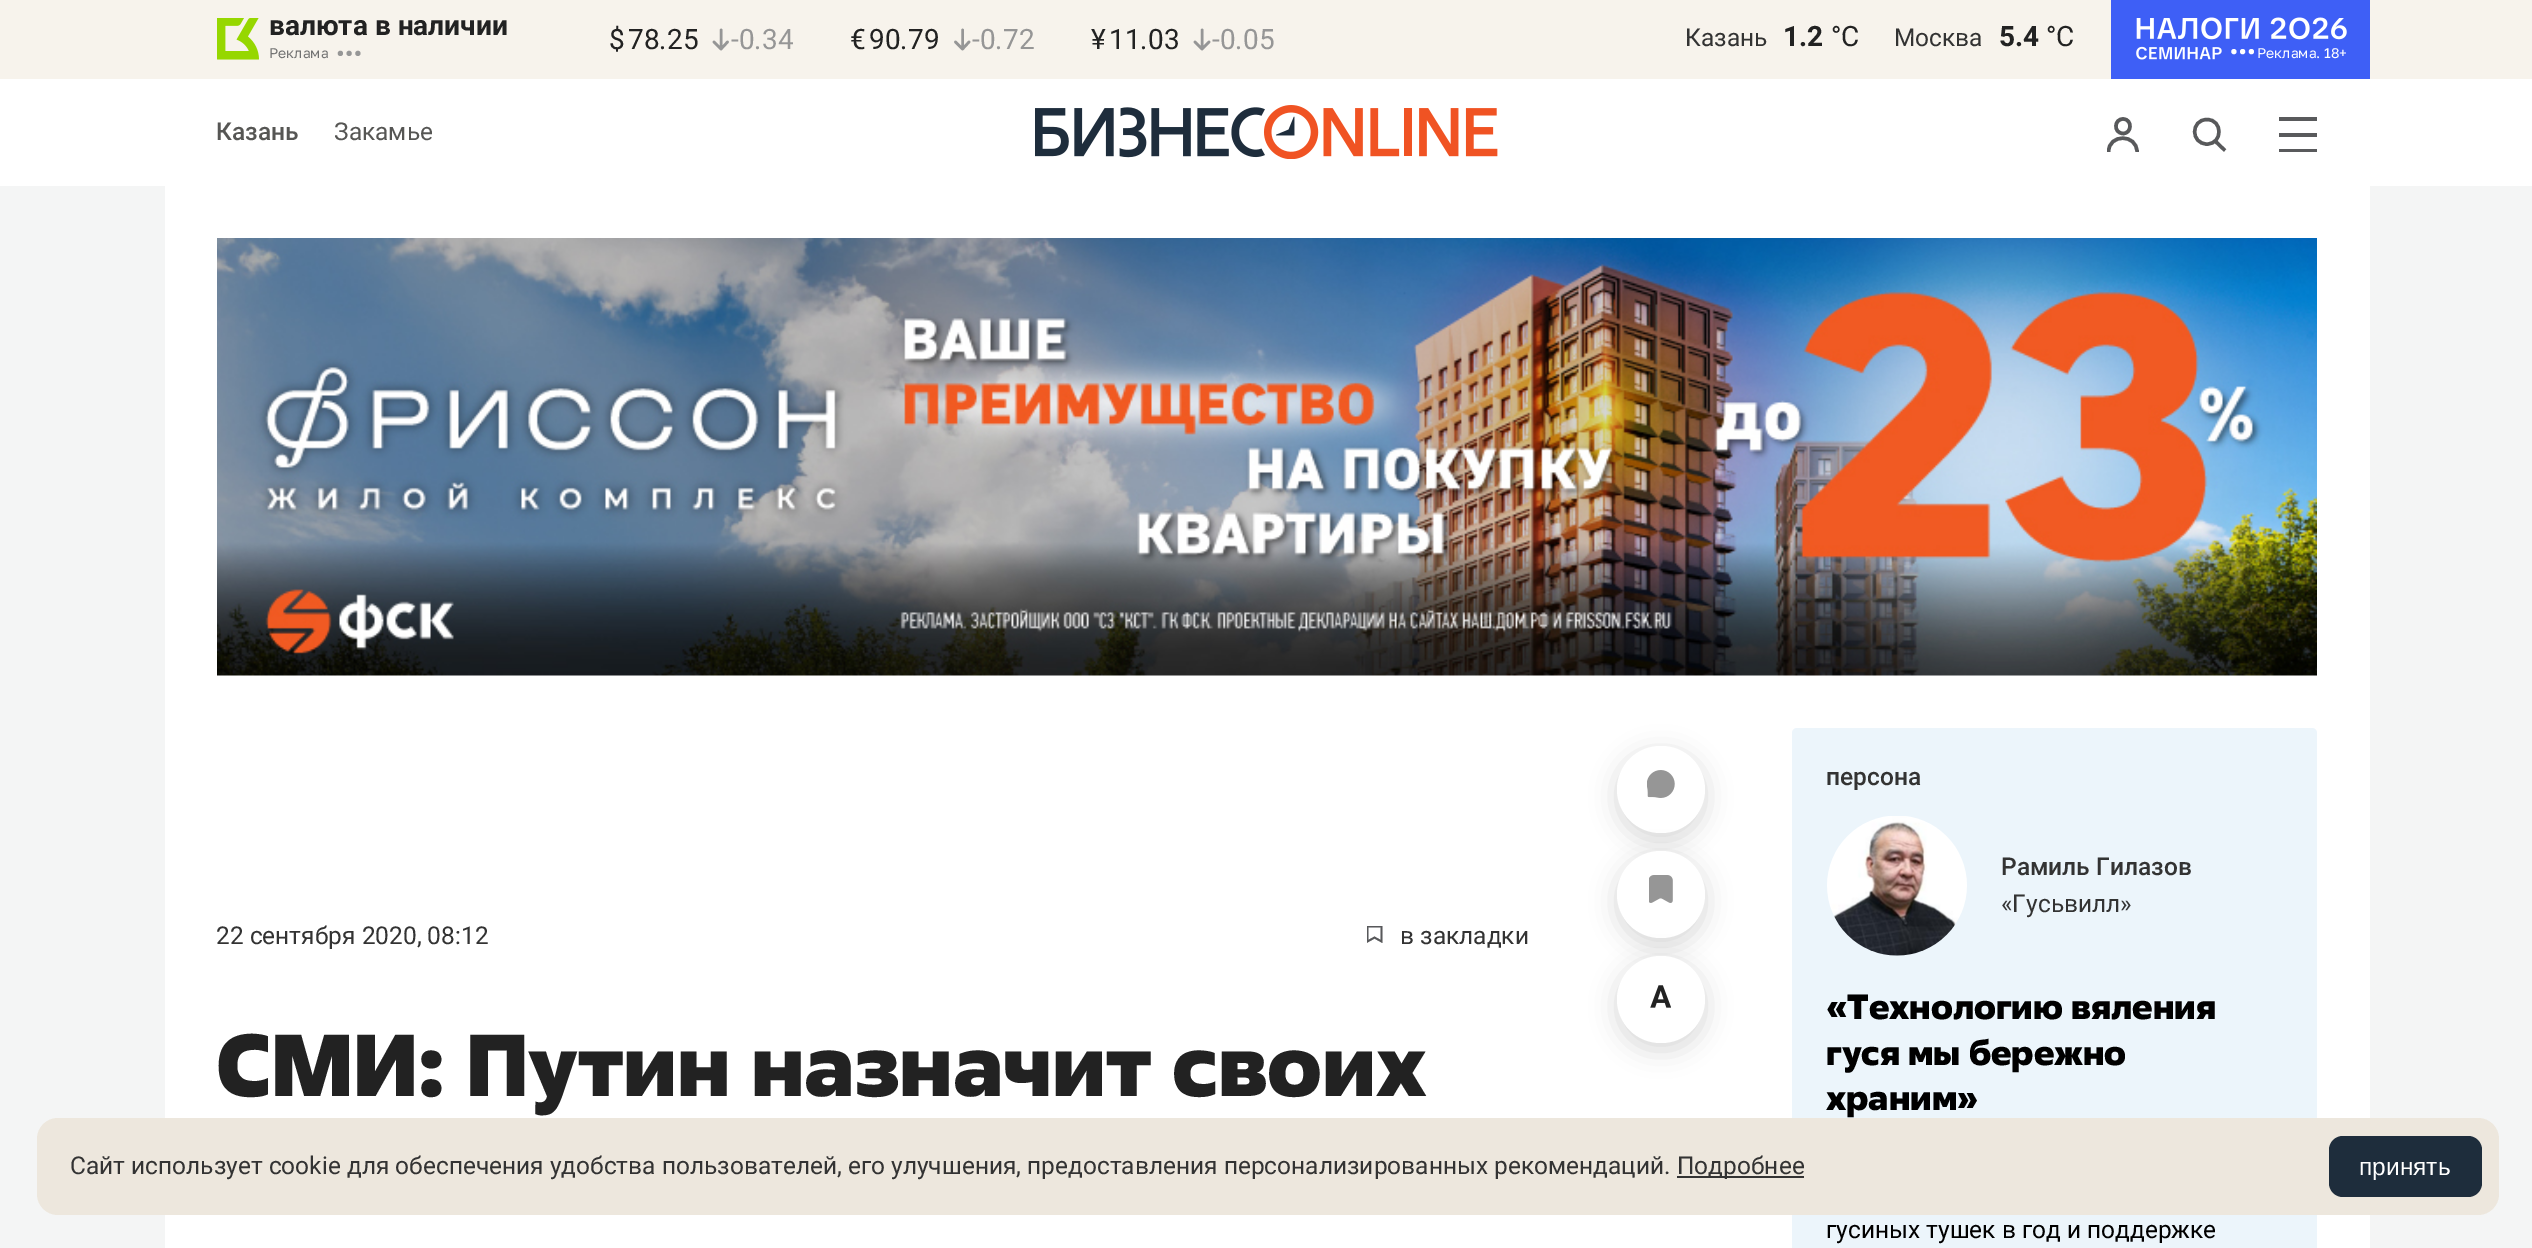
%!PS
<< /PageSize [2532 1248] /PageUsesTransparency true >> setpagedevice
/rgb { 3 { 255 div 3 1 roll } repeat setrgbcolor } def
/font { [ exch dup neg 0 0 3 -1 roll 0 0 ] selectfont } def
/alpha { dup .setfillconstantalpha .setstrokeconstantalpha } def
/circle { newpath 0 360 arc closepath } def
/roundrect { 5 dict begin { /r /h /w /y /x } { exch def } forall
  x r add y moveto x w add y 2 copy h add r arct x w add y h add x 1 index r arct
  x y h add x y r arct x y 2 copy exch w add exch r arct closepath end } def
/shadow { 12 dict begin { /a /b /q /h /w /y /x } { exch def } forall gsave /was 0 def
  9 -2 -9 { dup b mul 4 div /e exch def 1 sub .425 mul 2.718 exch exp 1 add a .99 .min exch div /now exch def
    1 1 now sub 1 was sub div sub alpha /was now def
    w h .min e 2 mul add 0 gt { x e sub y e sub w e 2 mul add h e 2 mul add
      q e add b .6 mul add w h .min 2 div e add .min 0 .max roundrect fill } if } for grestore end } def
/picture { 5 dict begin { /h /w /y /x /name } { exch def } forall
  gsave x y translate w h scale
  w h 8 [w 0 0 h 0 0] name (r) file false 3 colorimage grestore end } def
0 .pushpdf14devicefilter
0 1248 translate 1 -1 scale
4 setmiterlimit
244 245 245 rgb
0 0 2532 1248 rectfill
247 243 236 rgb
0 0 2532 79 rectfill
(img/1.rgb) 217 18 42 42 picture
150 150 150 rgb
357.9 53.4 2.6 circle fill
349.1 53.4 2.6 circle fill
340.4 53.4 2.6 circle fill
2.6 setlinewidth
1 setlinecap
1 setlinejoin
727.5 42 moveto 721 49 lineto 714 42 lineto 721 30 moveto 721 49 lineto stroke
969 42 moveto 962.5 49 lineto 955.5 42 lineto 962.5 30 moveto 962.5 49 lineto stroke
1209 42 moveto 1202 49 lineto 1195 42 lineto 1202 30 moveto 1202 49 lineto stroke
(img/2.rgb) 2111 0 259 79 picture
255 255 255 rgb
2251.4 51.6 2.6 circle fill
2242.6 51.6 2.6 circle fill
2233.9 51.6 2.6 circle fill
0 79 2532 107 rectfill
(img/3.rgb) 1035 105 463 54 picture
gsave
2107 117 33 35 rectclip
88 89 91 rgb
3.5 setlinewidth
0 setlinecap
0 setlinejoin
2137 152 moveto 2137 133.5 2108.5 133.5 2108.5 152 curveto stroke
grestore
88 89 91 rgb
3.5 setlinewidth
0 setlinecap
0 setlinejoin
2123 133.5 moveto 2132 133.5 2132.5 119.5 2123.5 119 curveto 2114 118.5 2113 133 2123 133.5 curveto closepath stroke
3.4 setlinewidth
2207 144 moveto 2223 144 2223 119.5 2207 119.5 curveto 2190.5 119.5 2190.5 144 2207 144 curveto closepath 2225 150.5 moveto 2214 140 lineto stroke
[
  [2279 117 38 35 89 90 92]
  [2279 121 38 12 255 255 255]
  [2279 137 38 12 255 255 255]
  [165 186 2205 1062 255 255 255]
] { aload pop rgb rectfill } forall
(img/4.rgb) 217 238 2100 438 picture
gsave
1367 926 16 17 rectclip
88 89 91 rgb
1.8 setlinewidth
1367.5 926.5 moveto 1367.5 941.5 lineto 1374.5 937.5 lineto 1381.5 941.5 lineto 1381.5 926.5 lineto closepath stroke
grestore
0 0 0 rgb
1617 753 88 87 43.5 13 0.15 shadow
255 255 255 rgb
1617 746 88 87 43.5 roundrect fill
(img/5.rgb) 1647 770 28 28 picture
0 0 0 rgb
1617 858 88 87 43.5 13 0.15 shadow
255 255 255 rgb
1617 851 88 87 43.5 roundrect fill
(img/6.rgb) 1649 875 24 28 picture
0 0 0 rgb
1617 963 88 87 43.5 13 0.15 shadow
255 255 255 rgb
1617 956 88 87 43.5 roundrect fill
(img/7.rgb) 1650 985 21 23 picture
236 245 251 rgb
1792 728 525 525 5 roundrect fill
(img/8.rgb) 1827 816 140 140 picture
237 231 221 rgb
37 1118 2462 97 21 roundrect fill
51 51 51 rgb
1677 1176 127 2 rectfill
30 45 60 rgb
2329 1136 153 61 14 roundrect fill
/Roboto-Bold 28 font
34 34 34 rgb
269 35 moveto (валюта в наличии) show
/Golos-Regular 14 font
113 113 113 rgb
269 58 moveto (Реклама) show
/Roboto-Regular 28 font
34 34 34 rgb
609 49 moveto ($) show
628 49 moveto (78.25) show
150 150 150 rgb
731 49 moveto (-0.34) show
34 34 34 rgb
850 49 moveto (€) show
869 49 moveto (90.79) show
150 150 150 rgb
972 49 moveto (-0.72) show
34 34 34 rgb
1091 49 moveto (¥) show
1109 49 moveto (11.03) show
150 150 150 rgb
1212 49 moveto (-0.05) show
/Roboto-Regular 24.5 font
51 51 51 rgb
1685 46 moveto (Казань) show
/Roboto-Bold 28 font
34 34 34 rgb
1783 46 moveto (1.2) show
/Roboto-Regular 28 font
1831 46 moveto (°С) show
/Roboto-Regular 24.5 font
51 51 51 rgb
1894 46 moveto (Москва) show
/Roboto-Bold 28 font
34 34 34 rgb
1999 46 moveto (5.4) show
/Roboto-Regular 28 font
2046 46 moveto (°С) show
/Golos-Regular 14 font
255 255 255 rgb
2257 58 moveto (Реклама. 18+) show
/Roboto-Medium 24.5 font
86 86 84 rgb
216 140 moveto (Казань) show
/Roboto-Regular 24.5 font
334 140 moveto (Закамье) show
51 51 51 rgb
216 944 moveto (22 сентября 2020, 08:12) show
1400 944 moveto (в закладки) show
/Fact-ExtraBold 87.5 font
34 34 34 rgb
216 1096 moveto (СМИ: Путин назначит своих) show
/Roboto-Medium 24.5 font
51 51 51 rgb
1826 785 moveto (персона) show
2001 875 moveto (Рамиль Гилазов) show
/Roboto-Regular 24.5 font
2001 912 moveto («Гусьвилл») show
/Fact-ExtraBold 35 font
0 0 0 rgb
[
  [(«Технологию вяления) 1826 1019]
  [(гуся мы бережно) 1826 1065]
  [(храним») 1826 1110]
] { aload pop moveto show } forall
/Roboto-Regular 24.5 font
1826 1238 moveto (гусиных тушек в год и поддержке) show
51 51 51 rgb
70 1174 moveto (Сайт использует cookie для обеспечения удобства пользователей, его улучшения, предоставления персонализированных рекомендаций.) show
1677 1174 moveto (Подробнее) show
/LiberationSans-Regular 24.5 font
255 255 255 rgb
2359 1175 moveto (принять) show
.poppdf14devicefilter showpage
